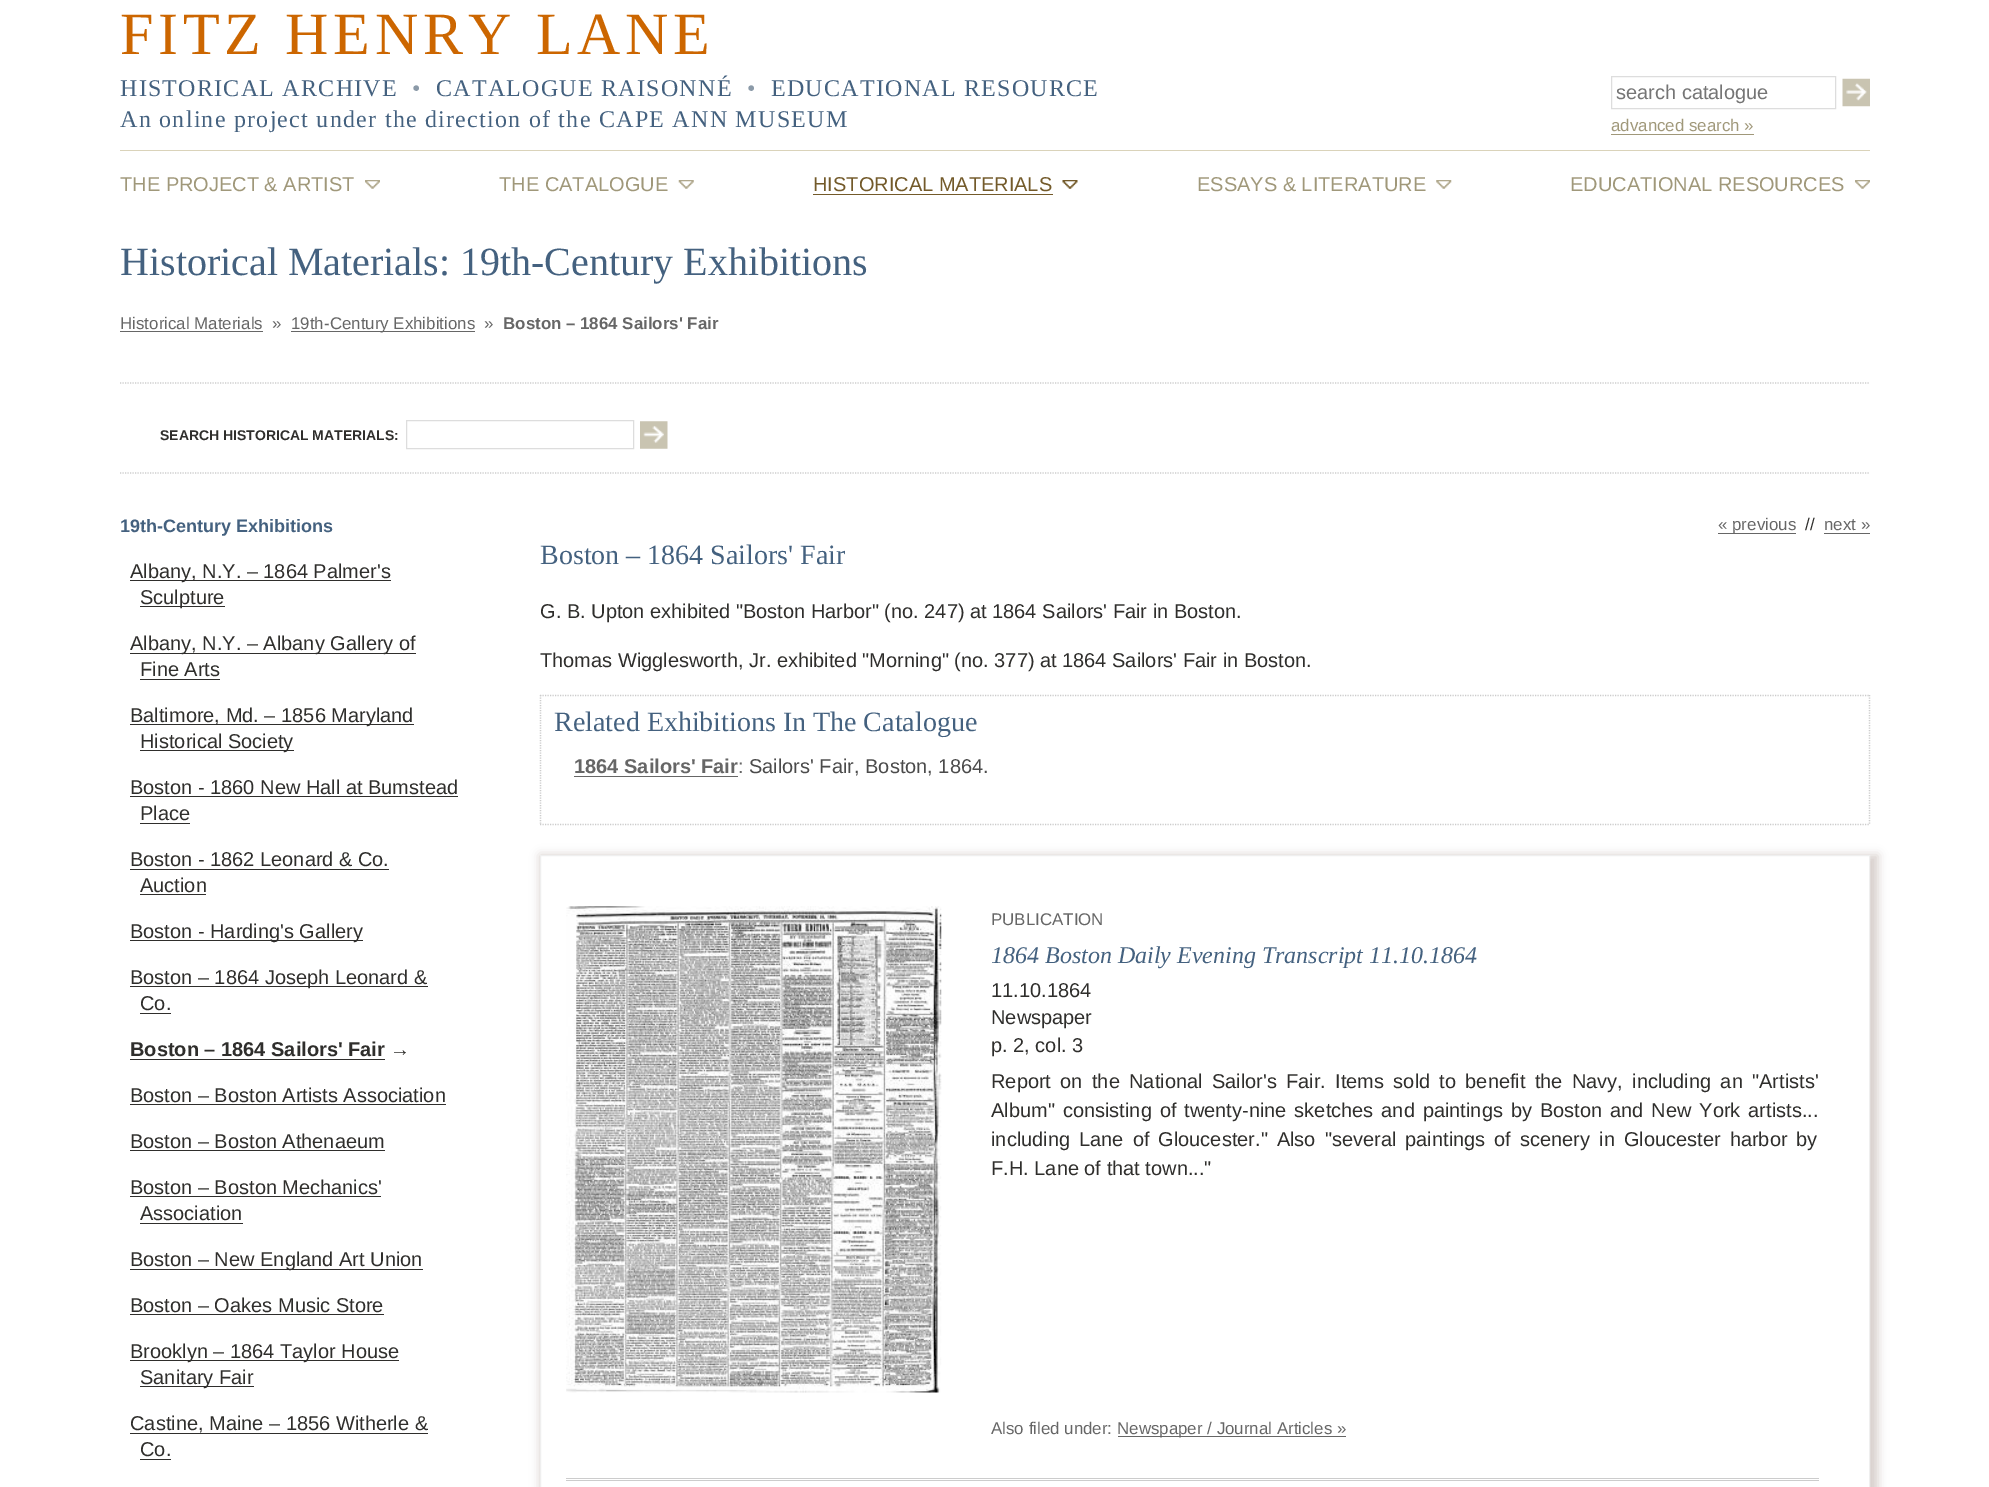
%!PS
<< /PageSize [1989 1487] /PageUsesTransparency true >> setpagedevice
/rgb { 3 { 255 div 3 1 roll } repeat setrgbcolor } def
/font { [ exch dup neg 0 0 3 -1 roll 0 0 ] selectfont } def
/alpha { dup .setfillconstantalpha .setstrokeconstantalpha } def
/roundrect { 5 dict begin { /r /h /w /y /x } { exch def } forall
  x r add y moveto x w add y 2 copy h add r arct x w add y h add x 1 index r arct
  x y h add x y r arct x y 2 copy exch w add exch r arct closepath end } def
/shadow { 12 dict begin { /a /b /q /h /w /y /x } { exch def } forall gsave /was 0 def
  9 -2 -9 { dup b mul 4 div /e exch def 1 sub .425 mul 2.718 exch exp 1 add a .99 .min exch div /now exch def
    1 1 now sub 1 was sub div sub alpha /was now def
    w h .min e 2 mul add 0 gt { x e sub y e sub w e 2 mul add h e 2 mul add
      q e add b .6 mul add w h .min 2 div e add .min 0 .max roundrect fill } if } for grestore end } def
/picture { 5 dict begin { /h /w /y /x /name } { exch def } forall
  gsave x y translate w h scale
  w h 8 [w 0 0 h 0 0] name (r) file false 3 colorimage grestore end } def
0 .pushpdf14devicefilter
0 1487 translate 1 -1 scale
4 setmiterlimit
255 255 255 rgb
0 0 1989 1487 rectfill
218 211 186 rgb
120 150 1750 1 rectfill
221 221 221 rgb
1611.5 76.5 224 32 rectstroke
(img/1.rgb) 1842 78 28 29 picture
160 152 122 rgb
1611 134 143 1 rectfill
(img/2.rgb) 365 180 15 9 picture
(img/3.rgb) 678 180 16 9 picture
(img/4.rgb) 1062 180 16 9 picture
115 90 42 rgb
813 194 240 1 rectfill
(img/5.rgb) 1436 180 16 9 picture
(img/6.rgb) 1855 180 15 9 picture
102 102 102 rgb
120 331 143 1 rectfill
291 331 184 1 rectfill
204 204 204 rgb
1.2 setlinewidth
[1.25 1.25] 0 setdash
120 383 moveto 1870 383 lineto stroke
120 473 moveto 1870 473 lineto stroke
221 221 221 rgb
1 setlinewidth
[] 0 setdash
406.5 420.5 227 28 rectstroke
(img/7.rgb) 640 421 28 28 picture
[
  [130 580 261 1 47 46 44]
  [140 606 85 1 47 46 44]
  [130 653 286 1 47 46 44]
  [140 679 80 1 47 46 44]
  [130 724 284 1 47 46 44]
  [140 750 154 1 47 46 44]
  [130 796 328 1 47 46 44]
  [140 823 50 1 47 46 44]
  [130 869 259 1 47 46 44]
  [140 894 66 1 47 46 44]
  [130 940 233 1 47 46 44]
  [130 986 298 1 47 46 44]
  [140 1013 31 1 47 46 44]
  [130 1059 255 1 47 46 44]
  [130 1104 316 1 47 46 44]
  [130 1150 255 1 47 46 44]
  [130 1196 251 1 47 46 44]
  [140 1223 103 1 47 46 44]
  [130 1269 293 1 47 46 44]
  [130 1314 254 1 47 46 44]
  [130 1360 269 1 47 46 44]
  [140 1386 114 1 47 46 44]
  [130 1433 298 1 47 46 44]
  [140 1459 31 1 47 46 44]
  [1718 533 78 1 102 102 102]
  [1824 533 46 1 102 102 102]
] { aload pop rgb rectfill } forall
204 204 204 rgb
1.2 setlinewidth
[1.25 1.25] 0 setdash
540 695.5 moveto 1870 695.5 lineto stroke
1869.5 695 moveto 1869.5 825 lineto stroke
540 824.5 moveto 1870 824.5 lineto stroke
540.5 695 moveto 540.5 825 lineto stroke
102 102 102 rgb
574 776 164 1 rectfill
gsave
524 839 moveto 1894 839 lineto 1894 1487 lineto 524 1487 lineto closepath 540 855 moveto 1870 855 lineto 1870 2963 lineto 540 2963 lineto closepath eoclip newpath
126 90 81 rgb
540 855 1338 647 0 5 0.3 shadow
grestore
239 239 239 rgb
1 setlinewidth
[] 0 setdash
540.5 855.5 1329 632 rectstroke
204 204 204 rgb
566 1478 1253 1 rectfill
566 1480 1253 1 rectfill
(img/8.rgb) 566 906 376 487 picture
102 102 102 rgb
1118 1436 228 1 rectfill
/LiberationSerif-Regular 60 font
204 102 0 rgb
120 54 moveto 4.75 0 (FITZ HENRY LANE) ashow
/LiberationSerif-Regular 24 font
68 97 127 rgb
120 96 moveto 1.25 0 (HISTORICAL ARCHIVE) ashow
139 154 168 rgb
412 96 moveto 1.25 0 (•) ashow
68 97 127 rgb
436 96 moveto 1.25 0 (CATALOGUE RAISONNÉ) ashow
139 154 168 rgb
747 96 moveto 1.25 0 (•) ashow
68 97 127 rgb
771 96 moveto 1.25 0 (EDUCATIONAL RESOURCE) ashow
120 127 moveto 1.25 0 (An online project under the direction of the CAPE ANN MUSEUM) ashow
/LiberationSans-Regular 20 font
117 117 117 rgb
1616 99 moveto (search catalogue) show
/LiberationSans-Regular 16.9 font
160 152 122 rgb
1611 131 moveto (advanced search ») show
/LiberationSans-Regular 20 font
120 191 moveto (THE PROJECT & ARTIST) show
499 191 moveto (THE CATALOGUE) show
115 90 42 rgb
813 191 moveto (HISTORICAL MATERIALS) show
160 152 122 rgb
1197 191 moveto (ESSAYS & LITERATURE) show
1570 191 moveto (EDUCATIONAL RESOURCES) show
/LiberationSerif-Regular 40 font
68 97 127 rgb
120 275 moveto (Historical Materials: 19th-Century Exhibitions) show
/LiberationSans-Regular 16.9 font
102 102 102 rgb
[
  [(Historical Materials) 120 329]
  [(») 272 329]
  [(19th-Century Exhibitions) 291 329]
  [(») 484 329]
] { aload pop moveto show } forall
/LiberationSans-Bold 16.9 font
503 329 moveto (Boston – 1864 Sailors' Fair) show
/LiberationSans-Bold 14 font
47 46 44 rgb
160 440 moveto (SEARCH HISTORICAL MATERIALS:) show
/LiberationSans-Bold 18 font
68 97 127 rgb
120 532 moveto (19th-Century Exhibitions) show
/LiberationSans-Regular 20 font
47 46 44 rgb
[
  [(Albany, N.Y. – 1864 Palmer's) 130 578]
  [(Sculpture) 140 604]
  [(Albany, N.Y. – Albany Gallery of) 130 650]
  [(Fine Arts) 140 676]
  [(Baltimore, Md. – 1856 Maryland) 130 722]
  [(Historical Society) 140 748]
  [(Boston - 1860 New Hall at Bumstead) 130 794]
  [(Place) 140 820]
  [(Boston - 1862 Leonard & Co.) 130 866]
  [(Auction) 140 892]
  [(Boston - Harding's Gallery) 130 938]
  [(Boston – 1864 Joseph Leonard &) 130 984]
  [(Co.) 140 1010]
] { aload pop moveto show } forall
/LiberationSans-Bold 20 font
130 1056 moveto (Boston – 1864 Sailors' Fair) show
/LiberationSans-Regular 20 font
[
  [(→) 390 1056]
  [(Boston – Boston Artists Association) 130 1102]
  [(Boston – Boston Athenaeum) 130 1148]
  [(Boston – Boston Mechanics') 130 1194]
  [(Association) 140 1220]
  [(Boston – New England Art Union) 130 1266]
  [(Boston – Oakes Music Store) 130 1312]
  [(Brooklyn – 1864 Taylor House) 130 1358]
  [(Sanitary Fair) 140 1384]
  [(Castine, Maine – 1856 Witherle &) 130 1430]
  [(Co.) 140 1456]
] { aload pop moveto show } forall
/LiberationSans-Regular 16.9 font
102 102 102 rgb
1718 530 moveto (« previous) show
47 46 44 rgb
1805 530 moveto (//) show
102 102 102 rgb
1824 530 moveto (next ») show
/LiberationSerif-Regular 28 font
68 97 127 rgb
540 564 moveto (Boston – 1864 Sailors' Fair) show
/LiberationSans-Regular 20 font
47 46 44 rgb
540 618 moveto (G. B. Upton exhibited "Boston Harbor" \(no. 247\) at 1864 Sailors' Fair in Boston.) show
540 667 moveto (Thomas Wigglesworth, Jr. exhibited "Morning" \(no. 377\) at 1864 Sailors' Fair in Boston.) show
/LiberationSerif-Regular 28 font
68 97 127 rgb
554 731 moveto (Related Exhibitions In The Catalogue) show
/LiberationSans-Bold 20 font
102 102 102 rgb
574 773 moveto (1864 Sailors' Fair) show
/LiberationSans-Regular 20 font
738 773 moveto (:) show
75 75 75 rgb
749 773 moveto (Sailors' Fair, Boston, 1864.) show
/LiberationSans-Regular 16.9 font
102 102 102 rgb
991 925 moveto (PUBLICATION) show
/LiberationSerif-Italic 24 font
68 97 127 rgb
991 963 moveto (1864 Boston Daily Evening Transcript 11.10.1864) show
/LiberationSans-Regular 20 font
47 46 44 rgb
[
  [(11.10.1864) 991 997]
  [(Newspaper) 991 1024]
  [(p. 2, col. 3) 991 1052]
] { aload pop moveto show } forall
991 1088 moveto 3.75 0 32 (Report on the National Sailor's Fair. Items sold to benefit the Navy, including an "Artists') widthshow
991 1117 moveto 2.4 0 32 (Album" consisting of twenty-nine sketches and paintings by Boston and New York artists...) widthshow
991 1146 moveto 3.5 0 32 (including Lane of Gloucester." Also "several paintings of scenery in Gloucester harbor by) widthshow
991 1175 moveto (F.H. Lane of that town...") show
/LiberationSans-Regular 16.9 font
102 102 102 rgb
991 1434 moveto (Also filed under:) show
1117 1434 moveto (Newspaper / Journal Articles ») show
.poppdf14devicefilter showpage
